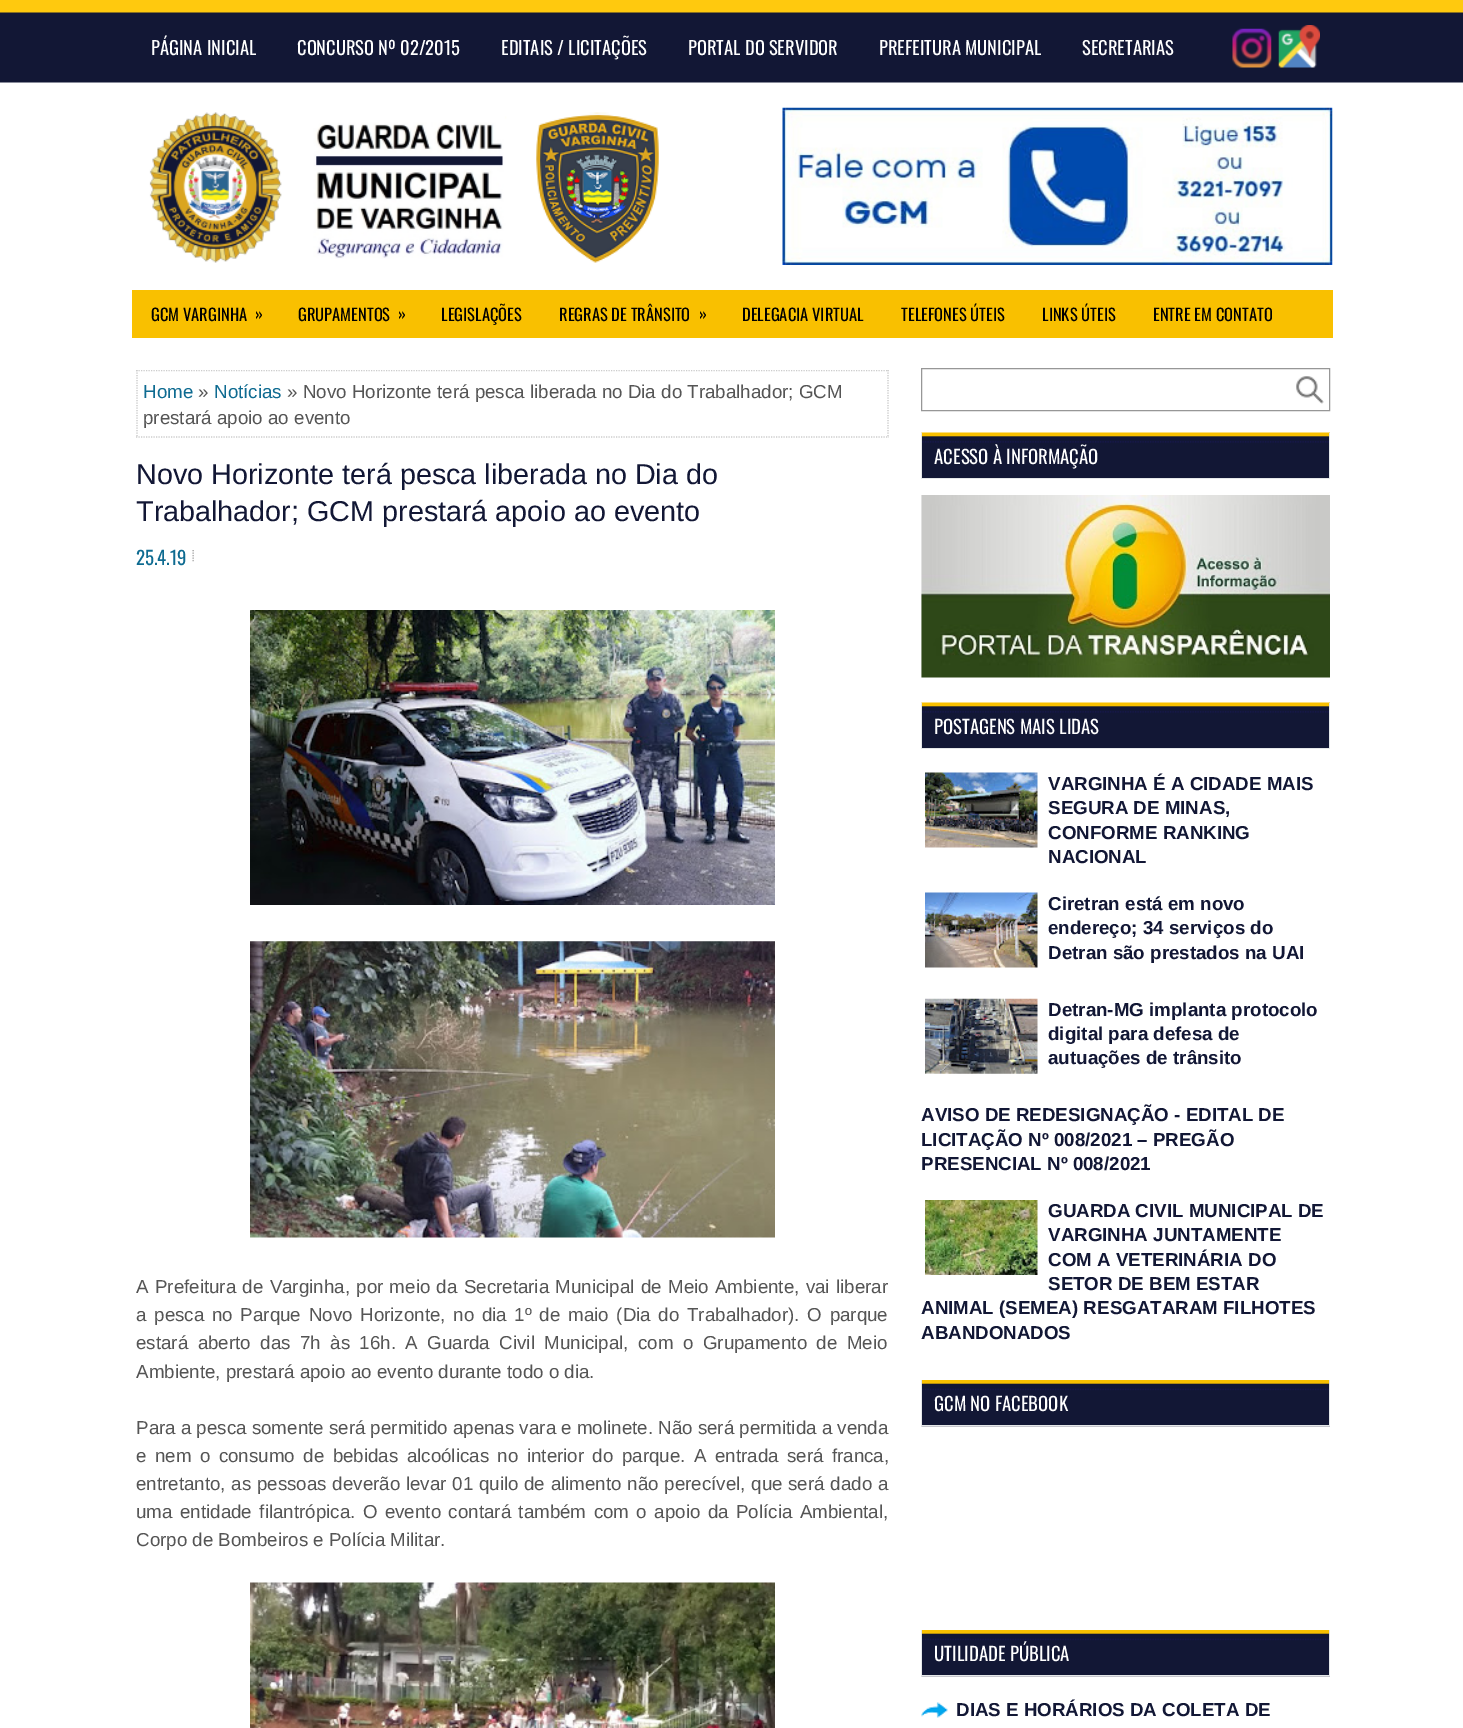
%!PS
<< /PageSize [1463 1728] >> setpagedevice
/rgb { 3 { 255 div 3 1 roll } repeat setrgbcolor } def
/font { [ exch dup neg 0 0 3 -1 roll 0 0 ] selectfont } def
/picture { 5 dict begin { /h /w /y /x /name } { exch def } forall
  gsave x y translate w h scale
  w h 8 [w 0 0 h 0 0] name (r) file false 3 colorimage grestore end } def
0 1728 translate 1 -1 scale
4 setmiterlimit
255 255 255 rgb
0 0 1463 1728 rectfill
(img/1.rgb) 0 0 1463 83 picture
(img/2.rgb) 1232 28 40 40 picture
(img/3.rgb) 1278 25 42 43 picture
(img/4.rgb) 149 112 510 151 picture
(img/5.rgb) 782 107 551 158 picture
249 192 0 rgb
132 290 1201 48 rectfill
gsave
136 370 753 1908 rectclip
204 204 204 rgb
1.2 setlinewidth
[1.25 1.25] 0 setdash
136 370.5 moveto 889 370.5 lineto stroke
grestore
204 204 204 rgb
1.2 setlinewidth
[1.25 1.25] 0 setdash
888 370 moveto 888 437.5 lineto stroke
136 437 moveto 889 437 lineto stroke
137 370 moveto 137 437.5 lineto stroke
(img/6.rgb) 192 550 2 12 picture
(img/7.rgb) 250 610 525 295 picture
(img/8.rgb) 250 941 525 297 picture
(img/9.rgb) 250 1582 525 146 picture
(img/10.rgb) 1296 376 28 28 picture
151 151 151 rgb
1 setlinewidth
[] 0 setdash
921.5 368.5 408 42 rectstroke
(img/11.rgb) 921 432 409 46 picture
[
  [1329 433 1 46 229 232 233]
  [921 478 409 1 229 232 233]
  [921 433 1 46 229 232 233]
] { aload pop rgb rectfill } forall
(img/12.rgb) 921 495 409 183 picture
(img/11.rgb) 921 702 409 46 picture
[
  [1329 703 1 46 229 232 233]
  [921 748 409 1 229 232 233]
  [921 703 1 46 229 232 233]
] { aload pop rgb rectfill } forall
(img/13.rgb) 925 772 113 76 picture
(img/14.rgb) 925 892 113 76 picture
(img/15.rgb) 925 998 113 76 picture
(img/16.rgb) 925 1200 113 75 picture
(img/17.rgb) 921 1380 409 47 picture
[
  [1329 1380 1 46 229 232 233]
  [921 1425 409 1 229 232 233]
  [921 1380 1 46 229 232 233]
] { aload pop rgb rectfill } forall
(img/17.rgb) 921 1630 409 47 picture
[
  [1329 1630 1 46 229 232 233]
  [921 1675 409 1 229 232 233]
  [921 1630 1 46 229 232 233]
] { aload pop rgb rectfill } forall
(img/18.rgb) 921 1702 27 16 picture
/Oswald-Regular 18.5 font
255 255 255 rgb
[
  [(PÁGINA INICIAL) 151 55]
  [(CONCURSO Nº 02/2015) 297 55]
  [(EDITAIS / LICITAÇÕES) 501 55]
  [(PORTAL DO SERVIDOR) 688 55]
  [(PREFEITURA MUNICIPAL) 879 55]
  [(SECRETARIAS) 1082 55]
] { aload pop moveto show } forall
/Oswald-Regular 16.5 font
0 0 0 rgb
[
  [(GCM VARGINHA) 151 321]
  [(») 255 320]
  [(GRUPAMENTOS) 298 321]
  [(») 398 320]
  [(LEGISLAÇÕES) 441 321]
  [(REGRAS DE TRÂNSITO) 559 321]
  [(») 699 320]
  [(DELEGACIA VIRTUAL) 742 321]
  [(TELEFONES ÚTEIS) 901 321]
  [(LINKS ÚTEIS) 1042 321]
  [(ENTRE EM CONTATO) 1153 321]
] { aload pop moveto show } forall
/LiberationSans-Regular 18.75 font
14 107 145 rgb
143 398 moveto (Home) show
85 85 85 rgb
198 398 moveto (») show
14 107 145 rgb
214 398 moveto (Notícias) show
85 85 85 rgb
287 398 moveto (» Novo Horizonte terá pesca liberada no Dia do Trabalhador; GCM) show
143 424 moveto (prestará apoio ao evento) show
/LiberationSans-Regular 28.75 font
18 23 53 rgb
136 484 moveto (Novo Horizonte terá pesca liberada no Dia do) show
136 521 moveto (Trabalhador; GCM prestará apoio ao evento) show
/Oswald-Regular 18.75 font
14 107 145 rgb
136 565 moveto (25.4.19) show
/LiberationSans-Regular 18.75 font
85 85 85 rgb
136 1293 moveto 1.1 0 32 (A Prefeitura de Varginha, por meio da Secretaria Municipal de Meio Ambiente, vai liberar) widthshow
136 1321 moveto 2.5 0 32 (a pesca no Parque Novo Horizonte, no dia 1º de maio \(Dia do Trabalhador\). O parque) widthshow
136 1349 moveto 4.25 0 32 (estará aberto das 7h às 16h. A Guarda Civil Municipal, com o Grupamento de Meio) widthshow
136 1378 moveto (Ambiente, prestará apoio ao evento durante todo o dia.) show
136 1434 moveto (Para a pesca somente será permitido apenas vara e molinete. Não será permitida a venda) show
136 1462 moveto 3.25 0 32 (e nem o consumo de bebidas alcoólicas no interior do parque. A entrada será franca,) widthshow
136 1490 moveto 0.5 0 32 (entretanto, as pessoas deverão levar 01 quilo de alimento não perecível, que será dado a) widthshow
136 1518 moveto 2.25 0 32 (uma entidade filantrópica. O evento contará também com o apoio da Polícia Ambiental,) widthshow
136 1546 moveto (Corpo de Bombeiros e Polícia Militar.) show
/Oswald-Regular 18.75 font
255 255 255 rgb
934 464 moveto (ACESSO À INFORMAÇÃO) show
934 734 moveto (POSTAGENS MAIS LIDAS) show
/LiberationSans-Bold 18.75 font
18 23 53 rgb
[
  [(VARGINHA É A CIDADE MAIS) 1048 790]
  [(SEGURA DE MINAS,) 1048 814]
  [(CONFORME RANKING) 1048 839]
  [(NACIONAL) 1048 863]
  [(Ciretran está em novo) 1048 910]
  [(endereço; 34 serviços do) 1048 934]
  [(Detran são prestados na UAI) 1048 959]
  [(Detran-MG implanta protocolo) 1048 1016]
  [(digital para defesa de) 1048 1040]
  [(autuações de trânsito) 1048 1064]
  [(AVISO DE REDESIGNAÇÃO - EDITAL DE) 921 1121]
  [(LICITAÇÃO Nº 008/2021 – PREGÃO) 921 1146]
  [(PRESENCIAL Nº 008/2021) 921 1170]
  [(GUARDA CIVIL MUNICIPAL DE) 1048 1217]
  [(VARGINHA JUNTAMENTE) 1048 1241]
  [(COM A VETERINÁRIA DO) 1048 1266]
  [(SETOR DE BEM ESTAR) 1048 1290]
  [(ANIMAL \(SEMEA\) RESGATARAM FILHOTES) 921 1314]
  [(ABANDONADOS) 921 1339]
] { aload pop moveto show } forall
/Oswald-Regular 18.75 font
255 255 255 rgb
934 1411 moveto (GCM NO FACEBOOK) show
934 1661 moveto (UTILIDADE PÚBLICA) show
/LiberationSans-Bold 18.75 font
18 23 53 rgb
956 1716 moveto (DIAS E HORÁRIOS DA COLETA DE) show
showpage
